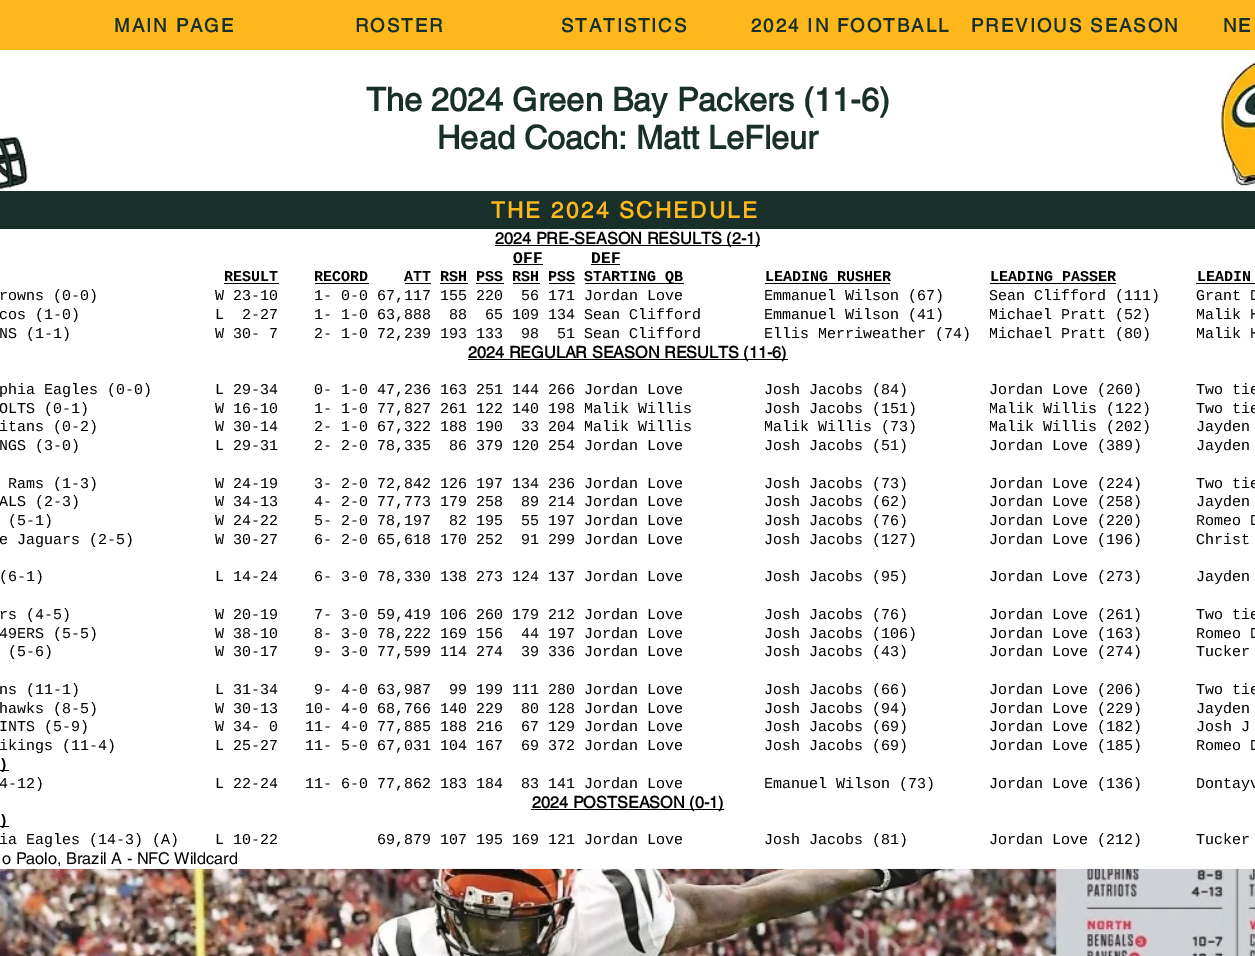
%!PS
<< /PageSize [1255 956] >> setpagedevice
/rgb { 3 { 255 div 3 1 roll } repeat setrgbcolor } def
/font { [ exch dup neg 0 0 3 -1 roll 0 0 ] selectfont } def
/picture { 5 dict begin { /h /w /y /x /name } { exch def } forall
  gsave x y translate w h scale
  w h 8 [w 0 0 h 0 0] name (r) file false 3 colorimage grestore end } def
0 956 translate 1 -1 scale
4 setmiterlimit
255 255 255 rgb
0 0 1255 956 rectfill
255 184 28 rgb
0 0 1255 50 rectfill
(img/1.rgb) 1221 53 34 135 picture
(img/2.rgb) 0 137 28 53 picture
[
  [0 191 1255 38 24 48 41]
  [495 245 265 1 0 0 0]
  [513 264 30 1 0 0 0]
  [591 264 29 1 0 0 0]
  [224 283 55 1 0 0 0]
  [315 283 54 1 0 0 0]
  [405 283 26 1 0 0 0]
  [440 283 28 1 0 0 0]
  [476 283 28 1 0 0 0]
  [513 283 27 1 0 0 0]
  [549 283 26 1 0 0 0]
  [585 283 99 1 0 0 0]
  [765 283 125 1 0 0 0]
  [990 283 126 1 0 0 0]
  [1196 283 59 1 0 0 0]
  [468 359 320 1 0 0 0]
  [0 770 9 1 0 0 0]
  [531 809 193 1 0 0 0]
  [0 826 9 1 0 0 0]
] { aload pop rgb rectfill } forall
(img/3.rgb) 0 868 1255 88 picture
/helvetica-Bold 18.75 font
24 48 41 rgb
114 32 moveto 1.9 0 (MAIN PAGE) ashow
355 32 moveto 1.9 0 (ROSTER) ashow
561 32 moveto 1.9 0 (STATISTICS) ashow
751 32 moveto 1.9 0 (2024 IN FOOTBALL) ashow
971 32 moveto 1.9 0 (PREVIOUS SEASON) ashow
1223 32 moveto 1.9 0 (NE) ashow
/helvetica-Bold 32.5 font
366 111 moveto (The 2024 Green Bay Packers \(11-6\)) show
437 149 moveto (Head Coach: Matt LeFleur) show
/helvetica-Bold 22.5 font
255 184 28 rgb
491 218 moveto 2.25 0 (THE 2024 SCHEDULE) ashow
/helvetica-Bold 16.25 font
0 0 0 rgb
495 244 moveto (2024 PRE-SEASON RESULTS \(2-1\)) show
/LiberationMono-Bold 16.25 font
513 263 moveto (OFF) show
591 263 moveto (DEF) show
/LiberationMono-Bold 15 font
[
  [(RESULT) 224 281]
  [(RECORD) 314 281]
  [(ATT RSH PSS RSH PSS) 404 281]
  [(STARTING QB) 584 281]
  [(LEADING RUSHER) 765 281]
  [(LEADING PASSER) 990 281]
  [(LEADIN) 1197 281]
] { aload pop moveto show } forall
/LiberationMono-Regular 15 font
[
  [(rowns \(0-0\)             W 23-10    1- 0-0 67,117 155 220  56 171 Jordan Love         Emmanuel Wilson \(67\)     Sean Clifford \(111\)    Grant D) -1 300]
  [(cos \(1-0\)               L  2-27    1- 1-0 63,888  88  65 109 134 Sean Clifford       Emmanuel Wilson \(41\)     Michael Pratt \(52\)     Malik H) -1 319]
  [(NS \(1-1\)                W 30- 7    2- 1-0 72,239 193 133  98  51 Sean Clifford       Ellis Merriweather \(74\)  Michael Pratt \(80\)     Malik H) -1 338]
] { aload pop moveto show } forall
/helvetica-Bold 16.25 font
468 358 moveto (2024 REGULAR SEASON RESULTS \(11-6\)) show
/LiberationMono-Regular 15 font
[
  [(phia Eagles \(0-0\)       L 29-34    0- 1-0 47,236 163 251 144 266 Jordan Love         Josh Jacobs \(84\)         Jordan Love \(260\)      Two tie) -1 394]
  [(OLTS \(0-1\)              W 16-10    1- 1-0 77,827 261 122 140 198 Malik Willis        Josh Jacobs \(151\)        Malik Willis \(122\)     Two tie) -1 413]
  [(itans \(0-2\)             W 30-14    2- 1-0 67,322 188 190  33 204 Malik Willis        Malik Willis \(73\)        Malik Willis \(202\)     Jayden) -1 431]
  [(NGS \(3-0\)               L 29-31    2- 2-0 78,335  86 379 120 254 Jordan Love         Josh Jacobs \(51\)         Jordan Love \(389\)      Jayden) -1 450]
  [(Rams \(1-3\)             W 24-19    3- 2-0 72,842 126 197 134 236 Jordan Love         Josh Jacobs \(73\)         Jordan Love \(224\)      Two tie) 8 488]
  [(ALS \(2-3\)               W 34-13    4- 2-0 77,773 179 258  89 214 Jordan Love         Josh Jacobs \(62\)         Jordan Love \(258\)      Jayden) -1 506]
  [(\(5-1\)                  W 24-22    5- 2-0 78,197  82 195  55 197 Jordan Love         Josh Jacobs \(76\)         Jordan Love \(220\)      Romeo D) 8 525]
  [(e Jaguars \(2-5\)         W 30-27    6- 2-0 65,618 170 252  91 299 Jordan Love         Josh Jacobs \(127\)        Jordan Love \(196\)      Christ) -1 544]
  [(\(6-1\)                   L 14-24    6- 3-0 78,330 138 273 124 137 Jordan Love         Josh Jacobs \(95\)         Jordan Love \(273\)      Jayden) -1 581]
  [(rs \(4-5\)                W 20-19    7- 3-0 59,419 106 260 179 212 Jordan Love         Josh Jacobs \(76\)         Jordan Love \(261\)      Two tie) -1 619]
  [(49ERS \(5-5\)             W 38-10    8- 3-0 78,222 169 156  44 197 Jordan Love         Josh Jacobs \(106\)        Jordan Love \(163\)      Romeo D) -1 638]
  [(\(5-6\)                  W 30-17    9- 3-0 77,599 114 274  39 336 Jordan Love         Josh Jacobs \(43\)         Jordan Love \(274\)      Tucker) 8 656]
  [(ns \(11-1\)               L 31-34    9- 4-0 63,987  99 199 111 280 Jordan Love         Josh Jacobs \(66\)         Jordan Love \(206\)      Two tie) -1 694]
  [(hawks \(8-5\)             W 30-13   10- 4-0 68,766 140 229  80 128 Jordan Love         Josh Jacobs \(94\)         Jordan Love \(229\)      Jayden) -1 713]
  [(INTS \(5-9\)              W 34- 0   11- 4-0 77,885 188 216  67 129 Jordan Love         Josh Jacobs \(69\)         Jordan Love \(182\)      Josh J) -1 731]
  [(ikings \(11-4\)           L 25-27   11- 5-0 67,031 104 167  69 372 Jordan Love         Josh Jacobs \(69\)         Jordan Love \(185\)      Romeo D) -1 750]
] { aload pop moveto show } forall
/LiberationMono-Bold 15 font
-1 769 moveto (\)) show
/LiberationMono-Regular 15 font
-1 788 moveto (4-12\)                   L 22-24   11- 6-0 77,862 183 184  83 141 Jordan Love         Emanuel Wilson \(73\)      Jordan Love \(136\)      Dontayv) show
/helvetica-Bold 16.25 font
532 808 moveto (2024 POSTSEASON \(0-1\)) show
/LiberationMono-Bold 15 font
-1 825 moveto (\)) show
/LiberationMono-Regular 15 font
-1 844 moveto (ia Eagles \(14-3\) \(A\)    L 10-22           69,879 107 195 169 121 Jordan Love         Josh Jacobs \(81\)         Jordan Love \(212\)      Tucker) show
/helvetica-Regular 16.25 font
2 864 moveto (o Paolo, Brazil A - NFC Wildcard) show
showpage
